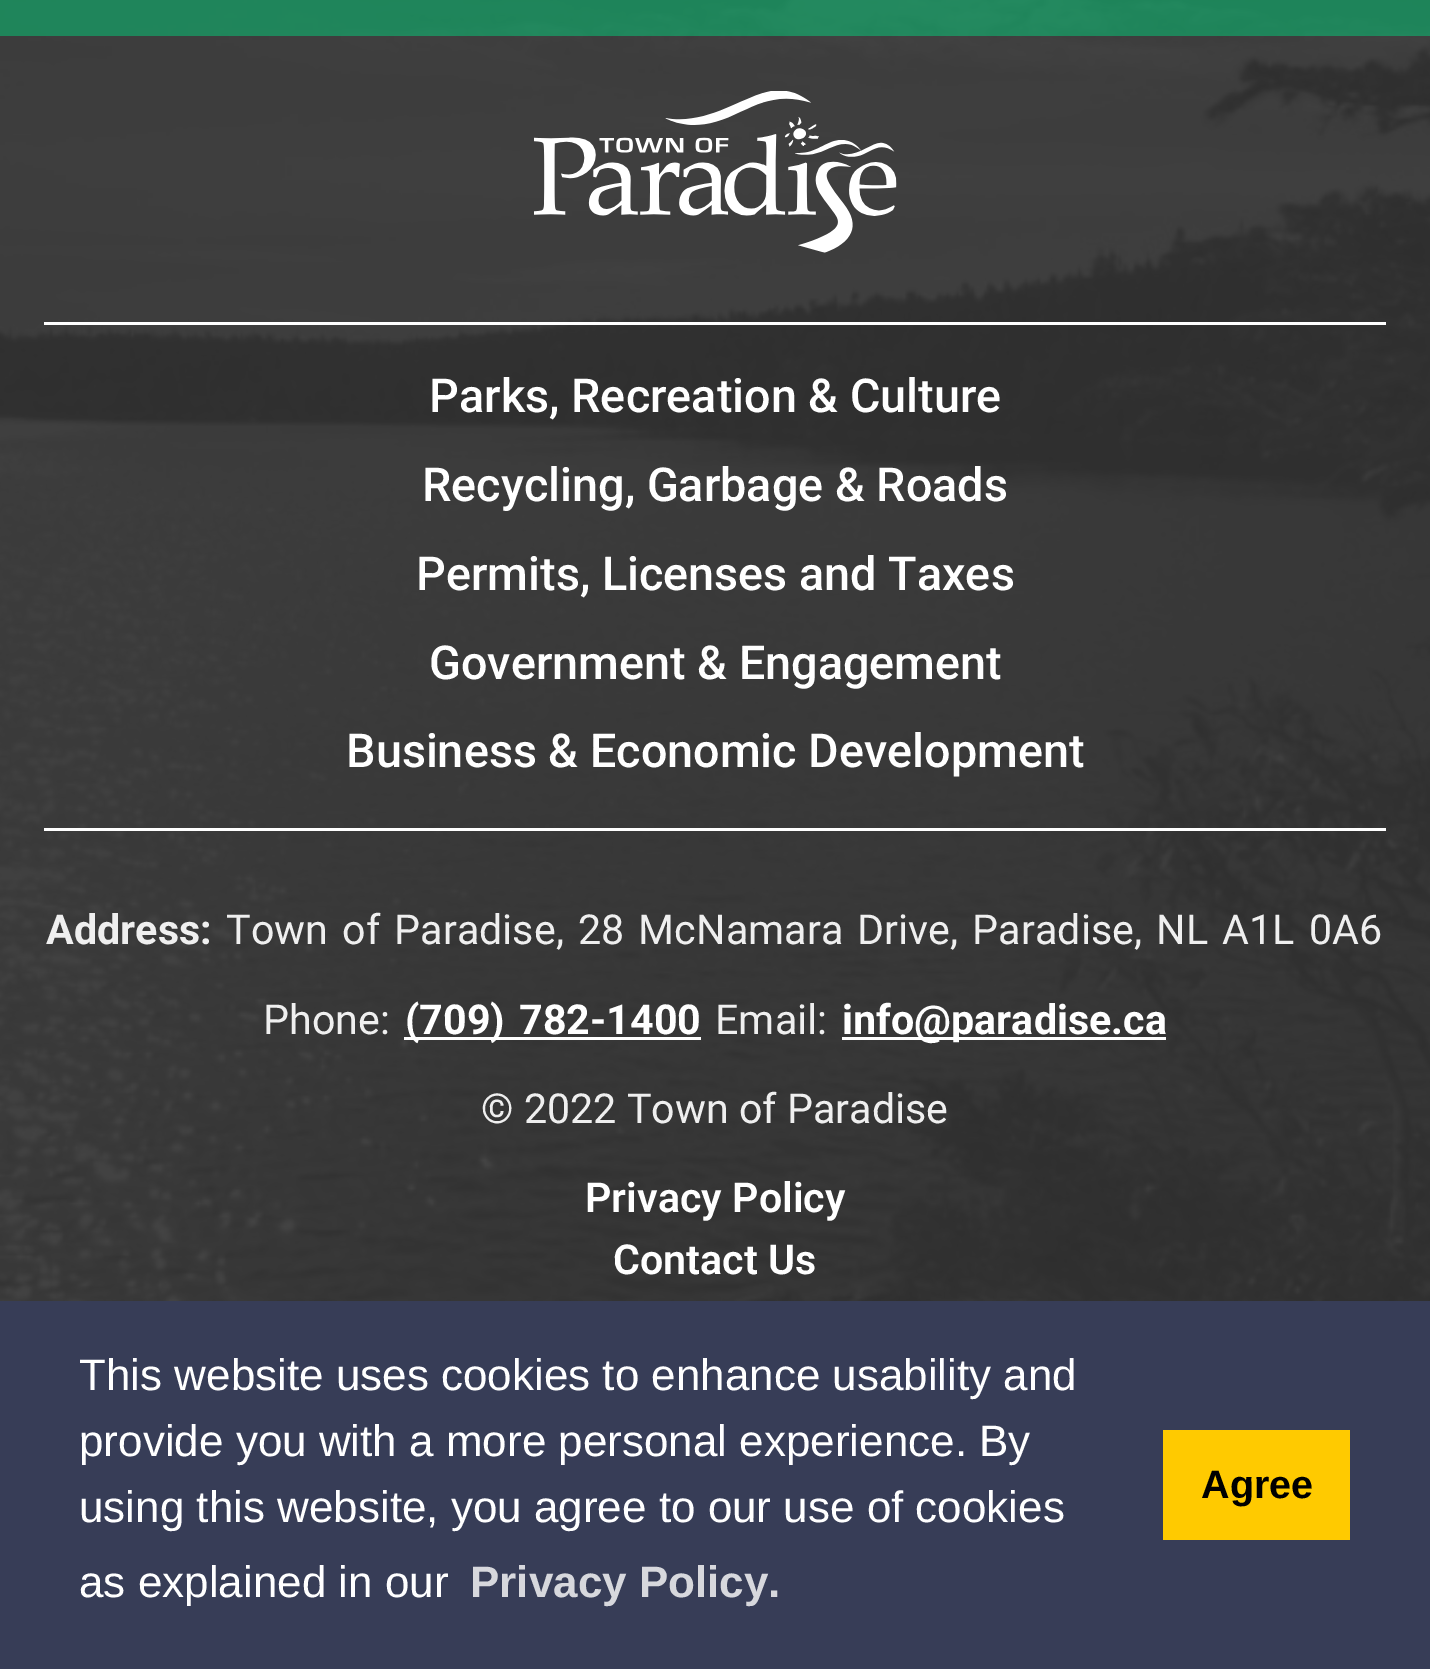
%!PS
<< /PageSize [1430 1669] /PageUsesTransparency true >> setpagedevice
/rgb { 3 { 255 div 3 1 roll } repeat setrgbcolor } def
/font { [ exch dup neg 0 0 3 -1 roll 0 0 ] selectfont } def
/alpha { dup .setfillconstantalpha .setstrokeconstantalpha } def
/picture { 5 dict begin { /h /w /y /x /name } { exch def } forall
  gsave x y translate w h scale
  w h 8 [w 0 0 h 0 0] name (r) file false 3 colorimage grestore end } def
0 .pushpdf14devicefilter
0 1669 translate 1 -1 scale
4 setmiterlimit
255 255 255 rgb
0 0 1430 1669 rectfill
(img/1.rgb) 0 0 1430 1301 picture
0.88 alpha
17 133 85 rgb
0 0 1430 36 rectfill
1 alpha
(img/2.rgb) 534 91 363 162 picture
[
  [44 322 1342 3 255 255 255]
  [44 828 1342 3 255 255 255]
  [404 1037 297 3 255 255 255]
  [842 1037 324 3 255 255 255]
  [0 1301 1430 368 55 61 87]
  [1163 1430 187 110 255 202 0]
] { aload pop rgb rectfill } forall
/Roboto-Medium 46.75 font
255 255 255 rgb
[
  [(Parks, Recreation & Culture) 429 412]
  [(Recycling, Garbage & Roads) 422 501]
  [(Permits, Licenses and Taxes) 416 590]
  [(Government & Engagement) 429 679]
  [(Business & Economic Development) 346 767]
] { aload pop moveto show } forall
/Roboto-Bold 41.25 font
239 239 239 rgb
46 944 moveto (Address:) show
/Roboto-Regular 41.25 font
226 944 moveto 4 0 32 (Town of Paradise, 28 McNamara Drive, Paradise, NL A1L 0A6) widthshow
263 1034 moveto (Phone:) show
/Roboto-Bold 41.25 font
255 255 255 rgb
405 1034 moveto 4 0 32 (\(709\) 782-1400) widthshow
/Roboto-Regular 41.25 font
239 239 239 rgb
715 1034 moveto (Email:) show
/Roboto-Bold 41.25 font
255 255 255 rgb
842 1034 moveto (info@paradise.ca) show
/Roboto-Regular 41.25 font
239 239 239 rgb
481 1123 moveto (© 2022 Town of Paradise) show
/Roboto-SemiBold 41.25 font
255 255 255 rgb
585 1212 moveto (Privacy Policy) show
613 1274 moveto (Contact Us) show
/LiberationSans-Regular 44 font
[
  [(This website uses cookies to enhance usability and) 79 1390]
  [(provide you with a more personal experience. By) 79 1456]
  [(using this website, you agree to our use of cookies) 79 1522]
  [(as explained in our) 79 1597]
] { aload pop moveto show } forall
/LiberationSans-Bold 44 font
215 216 221 rgb
470 1597 moveto (Privacy Policy.) show
/LiberationSans-Bold 39.5 font
0 0 0 rgb
1201 1498 moveto (Agree) show
.poppdf14devicefilter showpage
